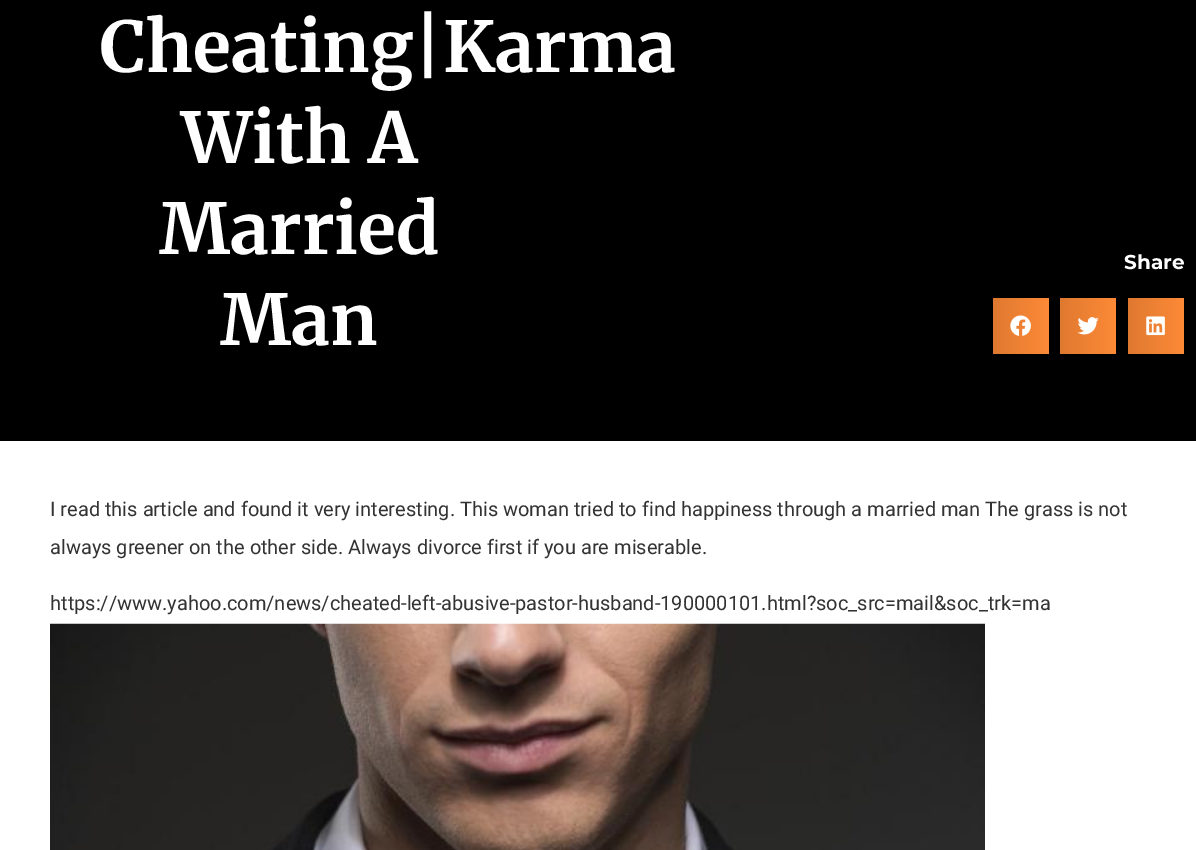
%!PS
<< /PageSize [1196 850] >> setpagedevice
/rgb { 3 { 255 div 3 1 roll } repeat setrgbcolor } def
/font { [ exch dup neg 0 0 3 -1 roll 0 0 ] selectfont } def
/picture { 5 dict begin { /h /w /y /x /name } { exch def } forall
  gsave x y translate w h scale
  w h 8 [w 0 0 h 0 0] name (r) file false 3 colorimage grestore end } def
0 850 translate 1 -1 scale
4 setmiterlimit
0 0 0 rgb
0 0 1196 850 rectfill
gsave 993 298 moveto 1049 298 lineto 1049 354 lineto 993 354 lineto closepath clip newpath
<< /ShadingType 2 /ColorSpace /DeviceRGB /Coords [993 326 1049 326] /Extend [true true] /Function << /FunctionType 2 /Domain [0 1] /C0 [0.875 0.475 0.188] /C1 [0.992 0.541 0.216] /N 1 >> >> shfill grestore
(img/1.rgb) 1010 315 21 21 picture
gsave 1060 298 moveto 1116 298 lineto 1116 354 lineto 1060 354 lineto closepath clip newpath
<< /ShadingType 2 /ColorSpace /DeviceRGB /Coords [1060 326 1116 326] /Extend [true true] /Function << /FunctionType 2 /Domain [0 1] /C0 [0.875 0.475 0.188] /C1 [0.992 0.541 0.216] /N 1 >> >> shfill grestore
(img/2.rgb) 1077 317 22 18 picture
gsave 1128 298 moveto 1184 298 lineto 1184 354 lineto 1128 354 lineto closepath clip newpath
<< /ShadingType 2 /ColorSpace /DeviceRGB /Coords [1128 326 1184 326] /Extend [true true] /Function << /FunctionType 2 /Domain [0 1] /C0 [0.875 0.475 0.188] /C1 [0.992 0.541 0.216] /N 1 >> >> shfill grestore
(img/3.rgb) 1146 316 19 20 picture
255 255 255 rgb
0 441 1196 409 rectfill
(img/4.rgb) 50 623 935 227 picture
/Merriweather-Bold 70 font
[
  [(Cheating|Karma) 100 72]
  [(With A) 181 163]
  [(Married) 159 254]
  [(Man) 220 345]
] { aload pop moveto show } forall
/Montserrat-Bold 20 font
1124 269 moveto (Share) show
/Roboto-Regular 20 font
51 51 51 rgb
[
  [(I read this article and found it very interesting. This woman tried to find happiness through a married man The grass is not) 50 516]
  [(always greener on the other side. Always divorce first if you are miserable.) 50 554]
  [(https://www.yahoo.com/news/cheated-left-abusive-pastor-husband-190000101.html?soc_src=mail&soc_trk=ma) 50 610]
] { aload pop moveto show } forall
showpage
